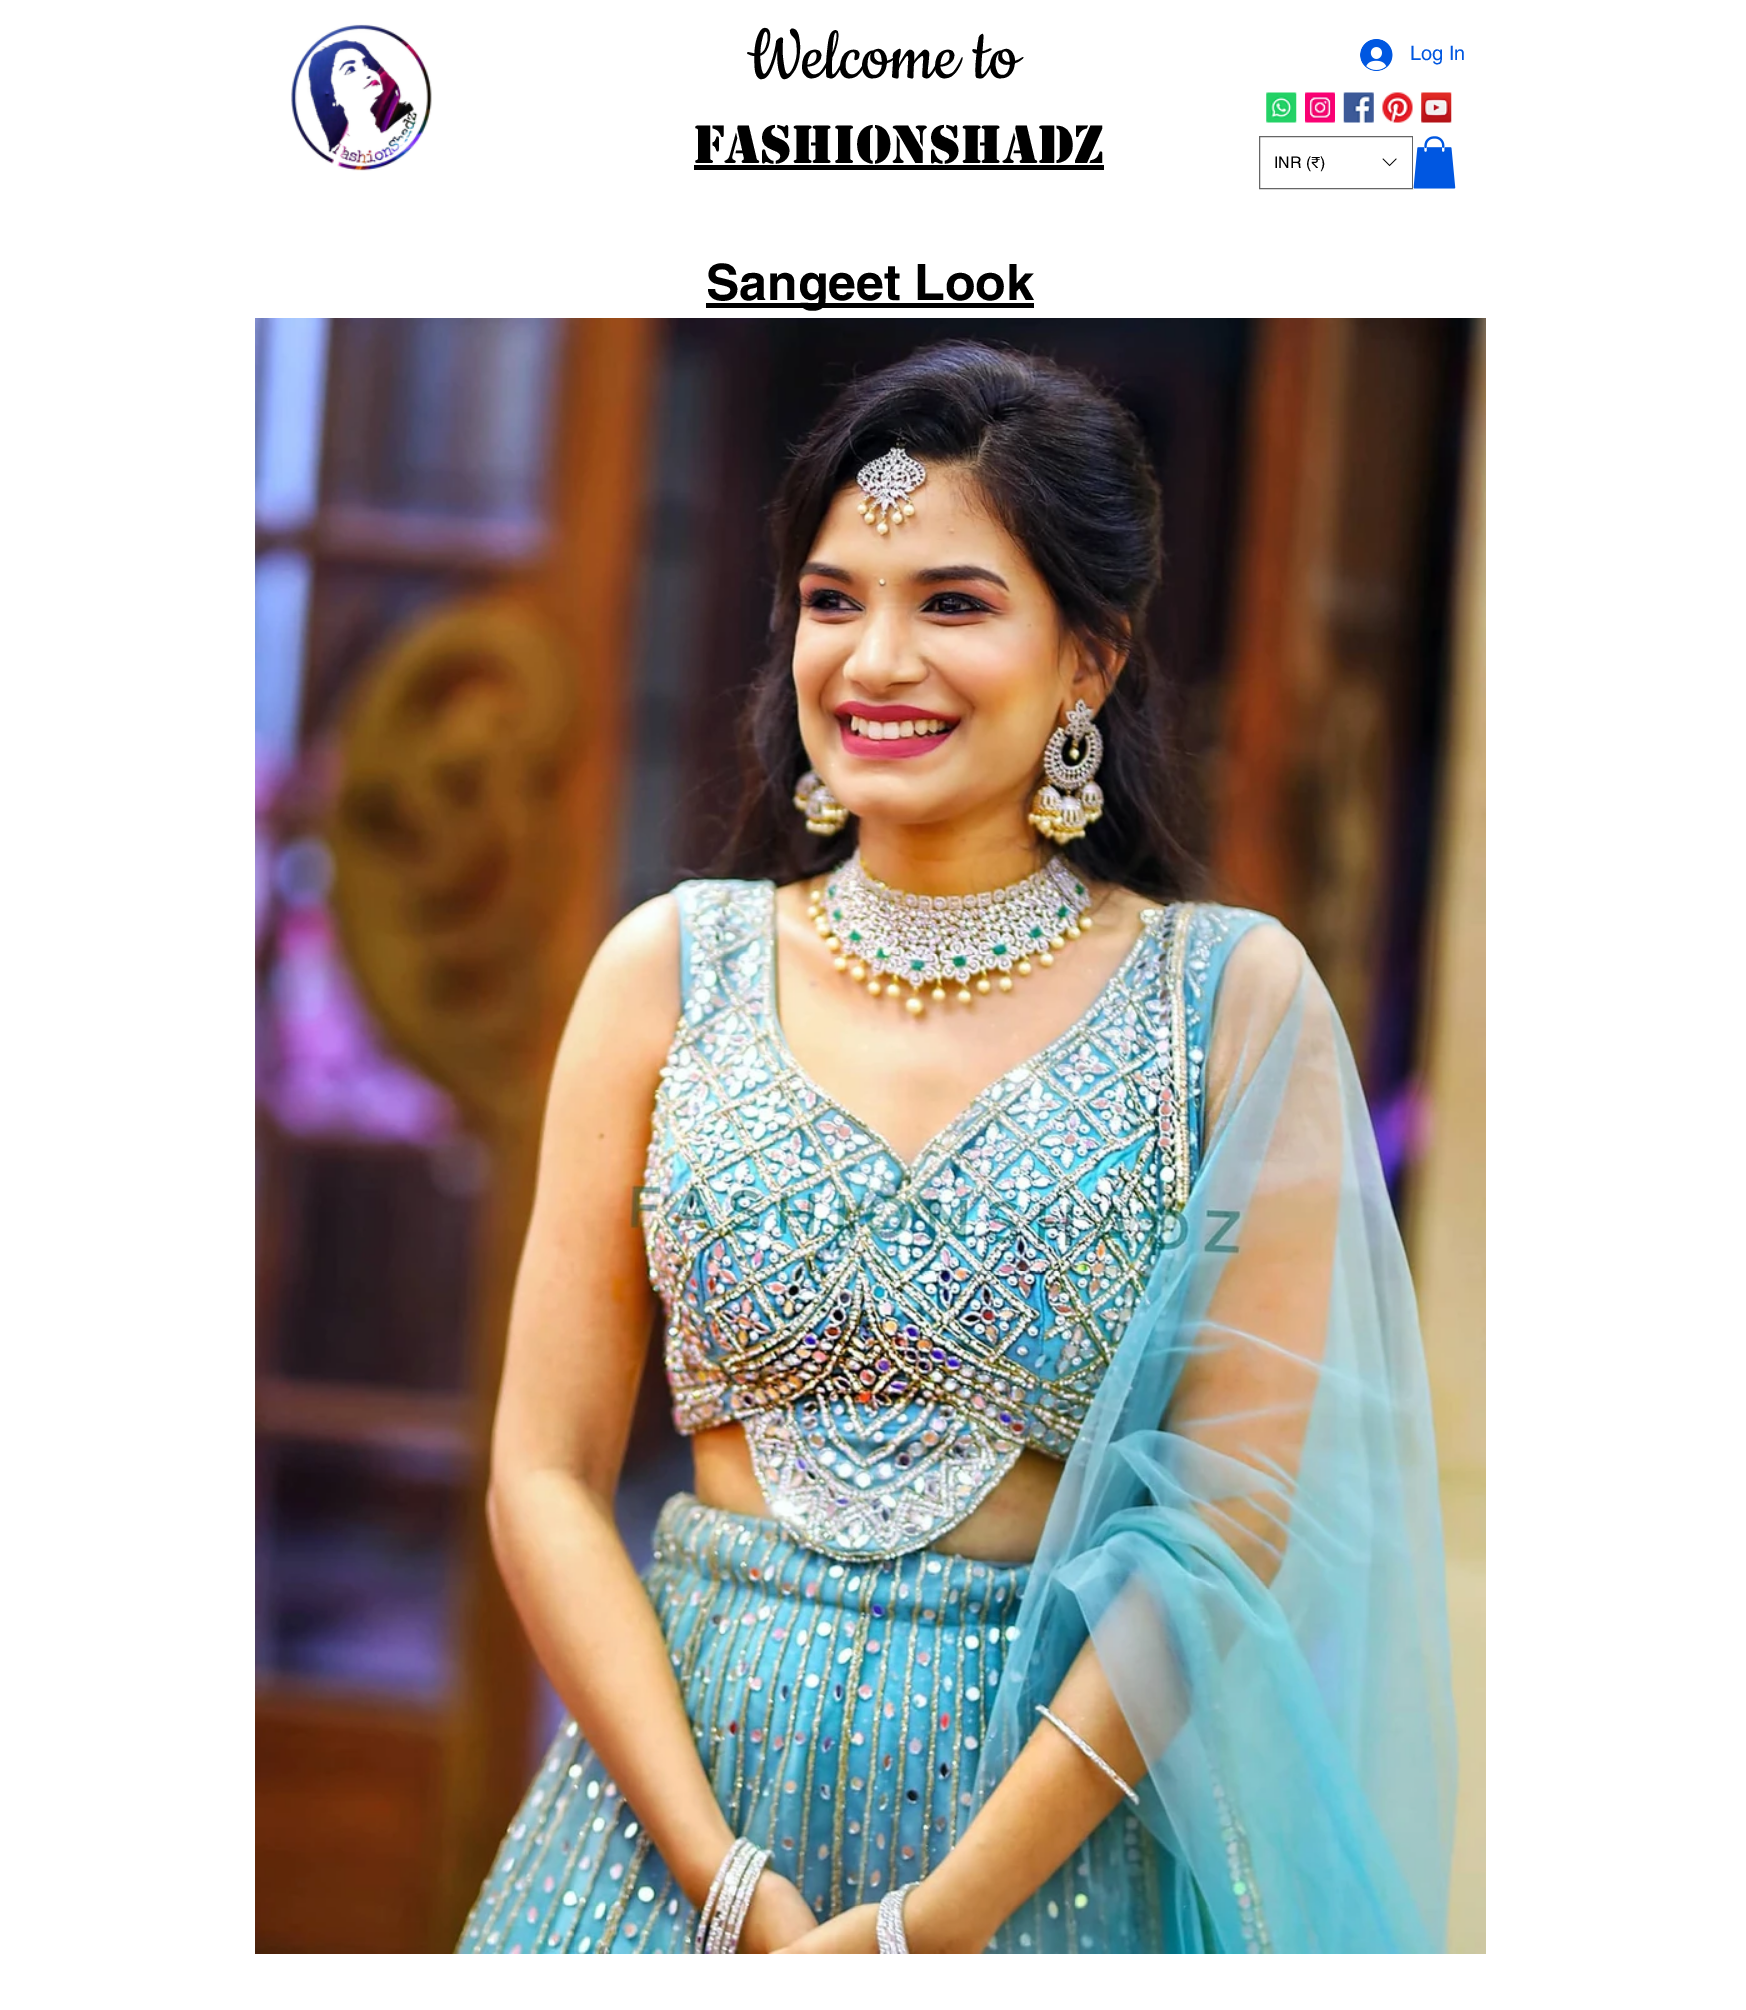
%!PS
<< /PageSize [1746 2010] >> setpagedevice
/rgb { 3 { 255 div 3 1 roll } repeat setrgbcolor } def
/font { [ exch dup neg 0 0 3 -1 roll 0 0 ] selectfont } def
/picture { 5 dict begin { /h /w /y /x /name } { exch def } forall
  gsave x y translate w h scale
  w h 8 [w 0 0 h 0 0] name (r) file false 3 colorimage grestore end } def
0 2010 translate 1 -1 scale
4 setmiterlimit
255 255 255 rgb
0 0 1746 2010 rectfill
(img/1.rgb) 291 24 141 147 picture
(img/2.rgb) 1360 39 33 32 picture
(img/3.rgb) 1266 92 31 31 picture
(img/4.rgb) 1305 92 30 31 picture
(img/5.rgb) 1343 92 31 31 picture
(img/6.rgb) 1382 92 31 31 picture
(img/7.rgb) 1421 92 31 31 picture
0 0 0 rgb
694 165 410 5 rectfill
102 102 102 rgb
1259.5 136.5 153 52 rectstroke
(img/8.rgb) 1382 158 15 9 picture
(img/9.rgb) 1413 136 43 53 picture
0 0 0 rgb
706 303 328 5 rectfill
(img/10.rgb) 255 318 1231 1636 picture
/Cookie-Regular 80 font
747 78 moveto (Welcome to) show
/helvetica-Regular 20 font
0 87 225 rgb
1410 60 moveto (Log In) show
/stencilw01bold-Bold 50 font
0 0 0 rgb
693 163 moveto (FASHIONSHADZ) show
/helvetica-Regular 16 font
1274 168 moveto (INR \(₹\)) show
/helvetica-Bold 50 font
706 300 moveto (Sangeet Look) show
showpage
